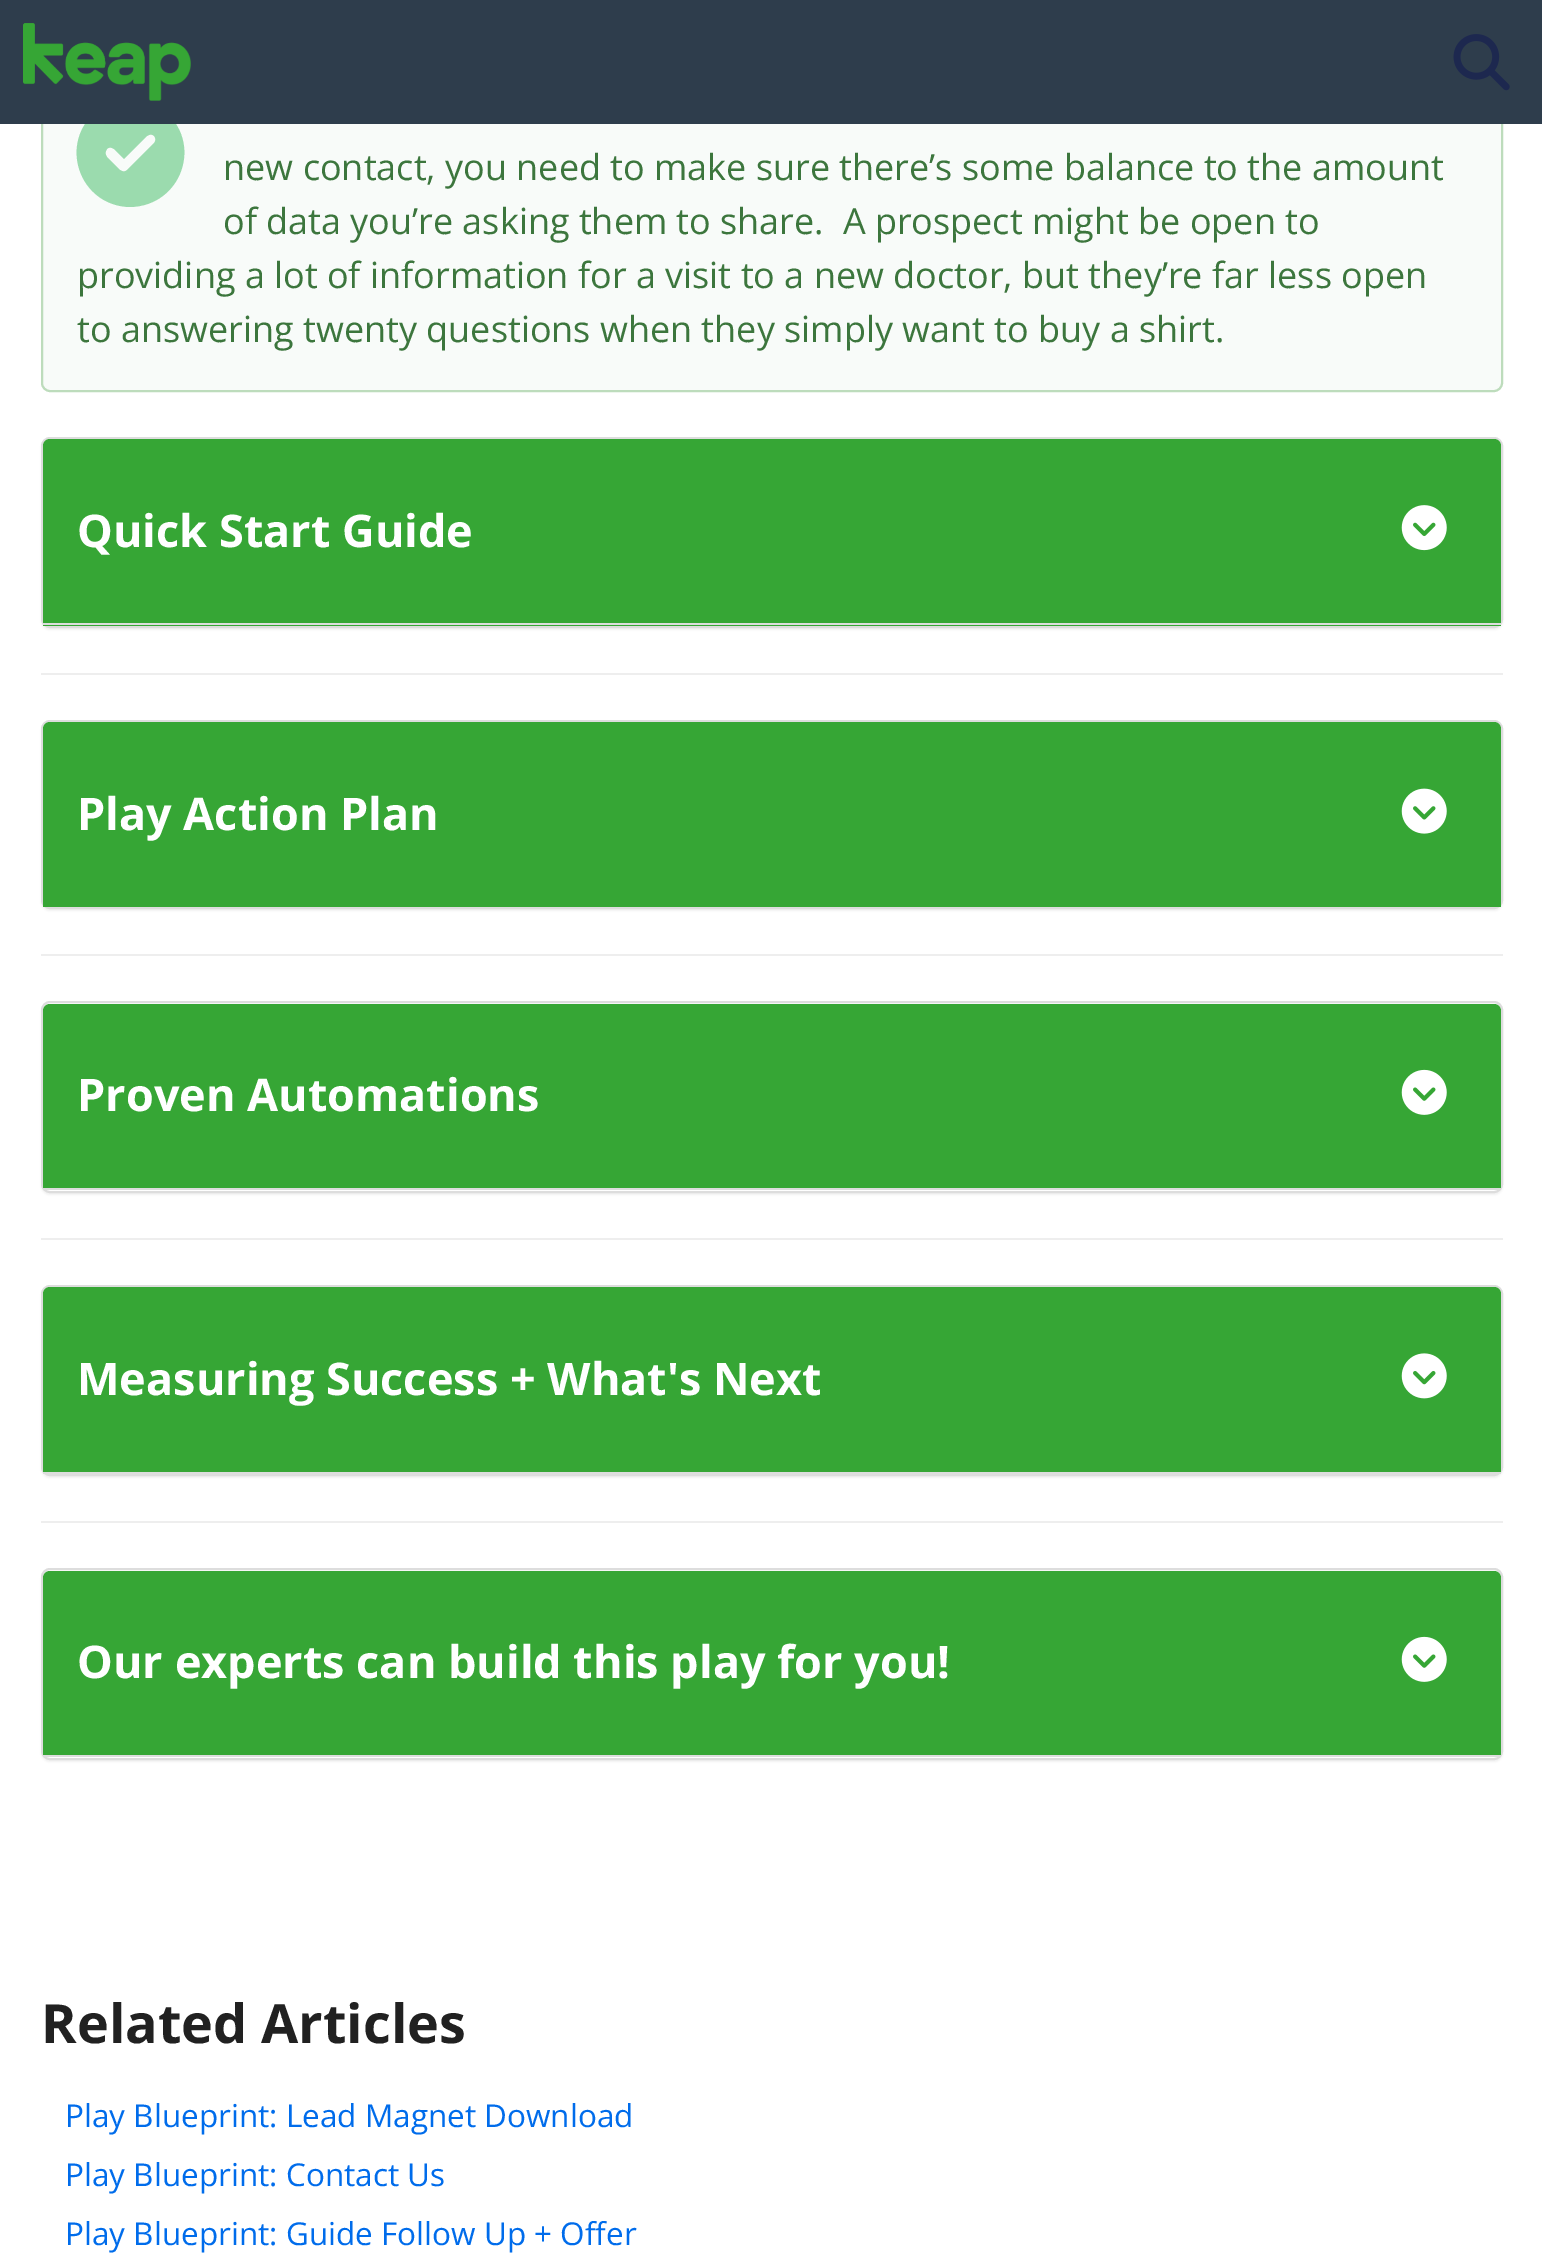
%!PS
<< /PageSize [1542 2261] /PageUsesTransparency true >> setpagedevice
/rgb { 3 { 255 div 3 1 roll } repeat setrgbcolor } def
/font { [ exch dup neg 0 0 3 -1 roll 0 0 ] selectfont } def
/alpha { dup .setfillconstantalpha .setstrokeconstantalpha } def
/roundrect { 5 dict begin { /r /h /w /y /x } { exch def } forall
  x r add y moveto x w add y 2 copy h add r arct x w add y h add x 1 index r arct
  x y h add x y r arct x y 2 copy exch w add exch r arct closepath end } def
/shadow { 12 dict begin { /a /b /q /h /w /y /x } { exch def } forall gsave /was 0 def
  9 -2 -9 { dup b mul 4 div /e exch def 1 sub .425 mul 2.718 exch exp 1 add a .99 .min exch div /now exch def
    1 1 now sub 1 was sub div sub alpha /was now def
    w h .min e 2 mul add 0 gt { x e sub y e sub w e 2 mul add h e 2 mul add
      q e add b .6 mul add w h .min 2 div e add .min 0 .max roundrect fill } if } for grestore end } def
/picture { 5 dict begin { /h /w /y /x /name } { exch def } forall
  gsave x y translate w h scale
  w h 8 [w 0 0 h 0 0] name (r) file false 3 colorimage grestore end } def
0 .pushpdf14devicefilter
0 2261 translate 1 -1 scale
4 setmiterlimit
255 255 255 rgb
0 0 1542 2261 rectfill
248 251 249 rgb
42 51 1460 340 8 roundrect gsave fill grestore
189 220 188 rgb
2 setlinewidth
stroke
155 219 174 rgb
130 207 moveto 182 206 204 142 163 110 curveto 154 103 142 99 130 99 curveto 119 99 107 103 98 110 curveto 57 142 79 206 130 207 curveto closepath 154 143 moveto 127 170 lineto 125 172 123 172 120 170 curveto 107 157 lineto 105 154 105 152 107 149 curveto 109 147 111 147 114 149 curveto 124 159 lineto 147 136 lineto 150 134 152 134 154 136 curveto 156 138 156 141 154 143 curveto closepath fill
46 61 76 rgb
0 0 1542 124 rectfill
(img/1.rgb) 23 23 168 78 picture
(img/2.rgb) 1453 34 57 57 picture
0 0 0 rgb
41 439 1462 191 9 1 0.05 shadow
221 221 221 rgb
42 438 1460 189 8 roundrect stroke
54 166 53 rgb
50 439 moveto 1494 439 lineto 1498 439 1501 442 1501 446 curveto 1501 626 lineto 43 626 lineto 43 446 lineto 43 442 46 439 50 439 curveto closepath fill
221 221 221 rgb
43 623 1458 2 rectfill
(img/3.rgb) 1401 505 46 46 picture
238 238 238 rgb
41 673 1462 2 rectfill
0 0 0 rgb
41 722 1462 189 9 1 0.05 shadow
221 221 221 rgb
42 721 1460 187 8 roundrect stroke
54 166 53 rgb
50 722 moveto 1494 722 lineto 1498 722 1501 725 1501 729 curveto 1501 907 lineto 43 907 lineto 43 729 lineto 43 725 46 722 50 722 curveto closepath fill
(img/4.rgb) 1401 788 46 46 picture
238 238 238 rgb
41 954 1462 2 rectfill
0 0 0 rgb
41 1004 1462 191 9 1 0.05 shadow
255 255 255 rgb
42 1002 1460 190 8 roundrect gsave fill grestore
221 221 221 rgb
stroke
54 166 53 rgb
50 1004 moveto 1494 1004 lineto 1498 1004 1501 1007 1501 1011 curveto 1501 1190 lineto 43 1190 lineto 43 1011 lineto 43 1007 46 1004 50 1004 curveto closepath fill
221 221 221 rgb
43 1188 1458 2 rectfill
(img/5.rgb) 1401 1069 46 46 picture
238 238 238 rgb
41 1238 1462 2 rectfill
0 0 0 rgb
41 1287 1462 191 9 1 0.05 shadow
221 221 221 rgb
42 1286 1460 189 8 roundrect stroke
54 166 53 rgb
50 1287 moveto 1494 1287 lineto 1498 1287 1501 1290 1501 1294 curveto 1501 1474 lineto 43 1474 lineto 43 1294 lineto 43 1290 46 1287 50 1287 curveto closepath fill
221 221 221 rgb
43 1472 1458 2 rectfill
(img/6.rgb) 1401 1353 46 46 picture
238 238 238 rgb
41 1521 1462 2 rectfill
0 0 0 rgb
41 1571 1462 191 9 1 0.05 shadow
255 255 255 rgb
42 1569 1460 190 8 roundrect gsave fill grestore
221 221 221 rgb
stroke
54 166 53 rgb
50 1571 moveto 1494 1571 lineto 1498 1571 1501 1574 1501 1578 curveto 1501 1757 lineto 43 1757 lineto 43 1578 lineto 43 1574 46 1571 50 1571 curveto closepath fill
221 221 221 rgb
43 1755 1458 2 rectfill
(img/5.rgb) 1401 1636 46 46 picture
/OpenSans-Regular 36 font
60 118 61 rgb
[
  [(new contact, you need to make sure there’s some balance to the amount) 223 180]
  [(of data you’re asking them to share.  A prospect might be open to) 223 234]
  [(providing a lot of information for a visit to a new doctor, but they’re far less open) 77 288]
  [(to answering twenty questions when they simply want to buy a shirt.) 77 342]
] { aload pop moveto show } forall
/OpenSans-Bold 45 font
255 255 255 rgb
[
  [(Quick Start Guide) 77 547]
  [(Play Action Plan) 77 830]
  [(Proven Automations) 77 1111]
  [(Measuring Success + What's Next) 77 1395]
  [(Our experts can build this play for you!) 77 1678]
] { aload pop moveto show } forall
/OpenSans-Bold 54 font
33 33 33 rgb
41 2043 moveto (Related Articles) show
/OpenSans-Regular 31.5 font
0 108 235 rgb
[
  [(Play Blueprint: Lead Magnet Download) 65 2127]
  [(Play Blueprint: Contact Us) 65 2186]
  [(Play Blueprint: Guide Follow Up + Offer) 65 2245]
] { aload pop moveto show } forall
.poppdf14devicefilter showpage
